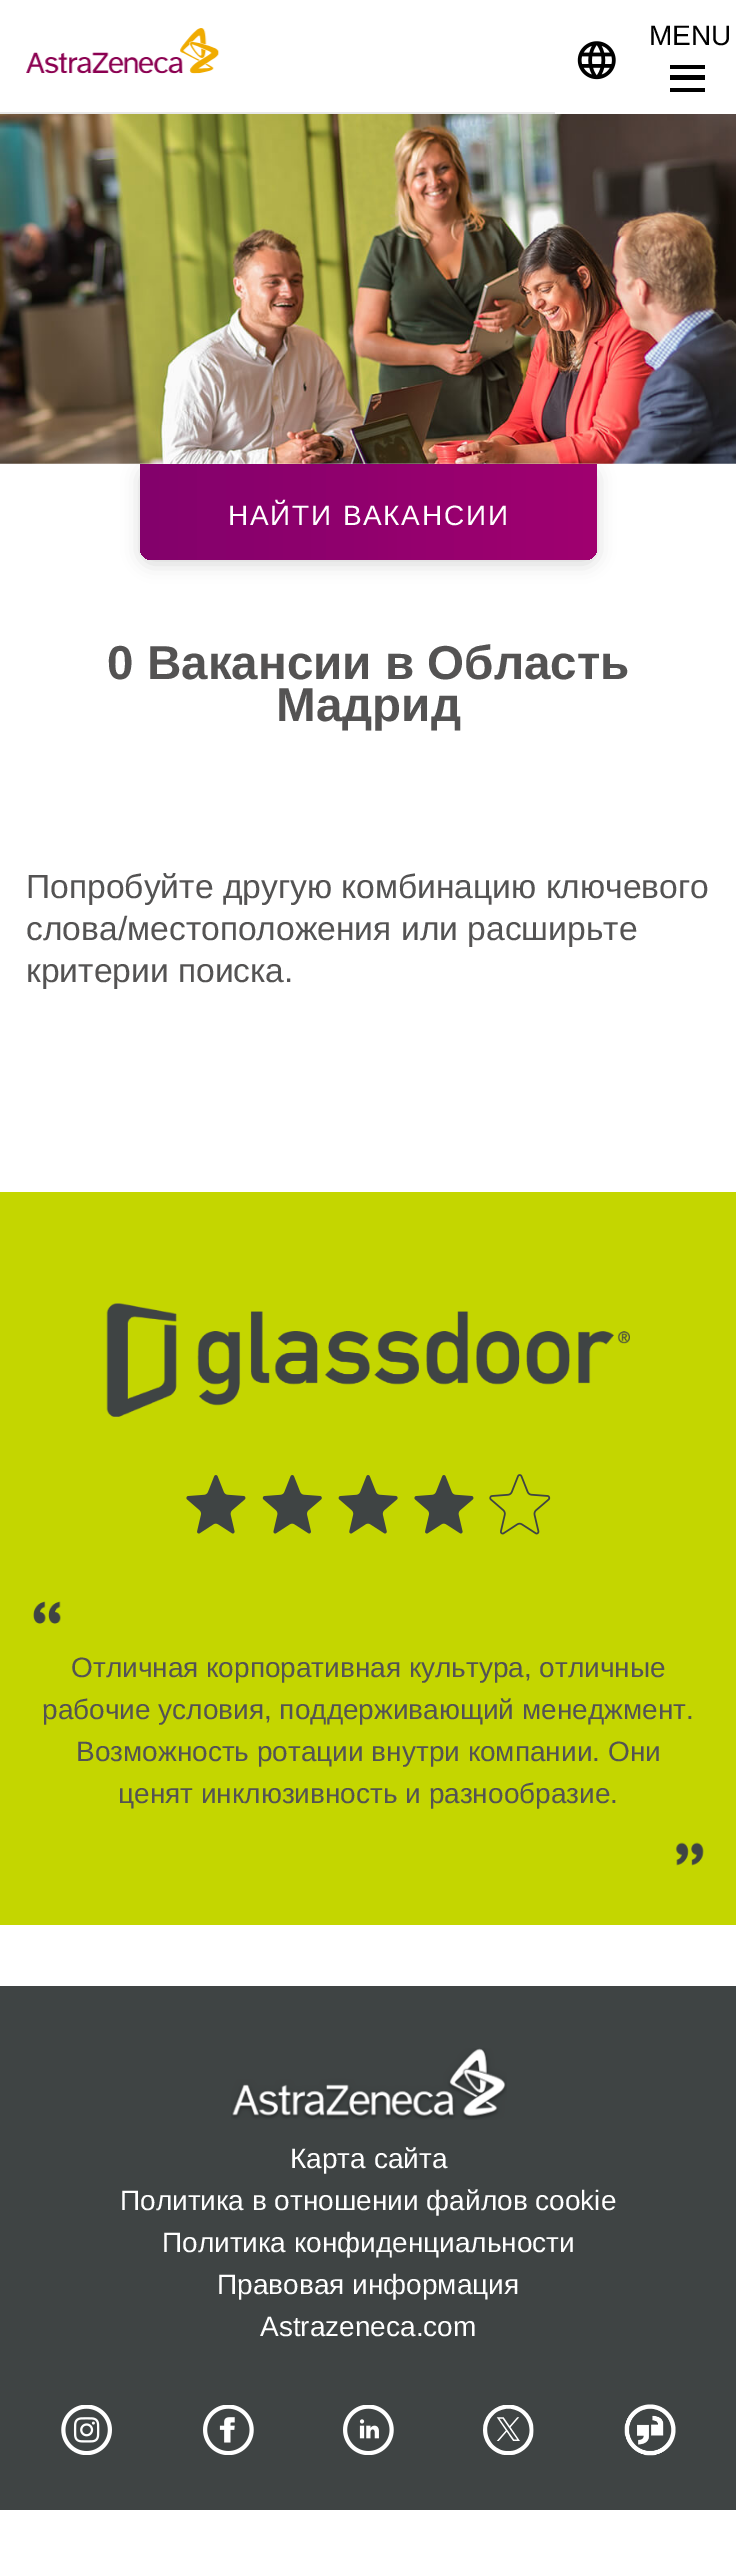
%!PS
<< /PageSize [736 2574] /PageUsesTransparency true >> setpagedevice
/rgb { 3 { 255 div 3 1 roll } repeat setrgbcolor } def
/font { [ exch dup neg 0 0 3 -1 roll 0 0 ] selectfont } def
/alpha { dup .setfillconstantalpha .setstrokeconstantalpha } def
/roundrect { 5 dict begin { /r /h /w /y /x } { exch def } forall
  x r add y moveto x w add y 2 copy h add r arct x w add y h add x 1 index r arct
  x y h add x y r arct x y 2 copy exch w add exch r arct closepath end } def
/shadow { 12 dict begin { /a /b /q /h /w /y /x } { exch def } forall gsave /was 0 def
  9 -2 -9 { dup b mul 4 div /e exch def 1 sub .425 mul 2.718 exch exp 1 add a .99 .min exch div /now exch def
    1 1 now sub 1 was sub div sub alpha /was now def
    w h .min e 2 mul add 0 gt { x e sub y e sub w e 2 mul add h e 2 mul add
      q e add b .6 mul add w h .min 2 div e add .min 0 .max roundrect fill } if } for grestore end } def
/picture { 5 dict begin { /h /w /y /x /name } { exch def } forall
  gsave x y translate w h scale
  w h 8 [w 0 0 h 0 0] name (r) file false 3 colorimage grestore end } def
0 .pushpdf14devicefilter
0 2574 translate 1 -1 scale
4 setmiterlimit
255 255 255 rgb
0 0 736 2574 rectfill
0 0 0 rgb
140 467 457 97 12 9 0.15 shadow
(img/1.rgb) 0 114 736 350 picture
232 232 232 rgb
0 112 555 2 rectfill
(img/2.rgb) 26 28 194 46 picture
[
  [670 65 35 4 0 0 0]
  [670 75 35 5 0 0 0]
  [670 88 35 4 0 0 0]
] { aload pop rgb rectfill } forall
(img/3.rgb) 577 41 39 39 picture
gsave 140 464 moveto 597 464 lineto 597 548 lineto 597 554.5 591.5 560 585 560 curveto 152 560 lineto 145.5 560 140 554.5 140 548 curveto closepath clip newpath
<< /ShadingType 2 /ColorSpace /DeviceRGB /Coords [140 512 597 512] /Extend [true true] /Function << /FunctionType 3 /Domain [0 1] /Functions [<< /FunctionType 2 /Domain [0 1] /C0 [0.514 0.004 0.42] /C1 [0.529 0.004 0.424] /N 1 >> << /FunctionType 2 /Domain [0 1] /C0 [0.529 0.004 0.424] /C1 [0.545 0 0.424] /N 1 >> << /FunctionType 2 /Domain [0 1] /C0 [0.545 0 0.424] /C1 [0.561 0 0.427] /N 1 >> << /FunctionType 2 /Domain [0 1] /C0 [0.561 0 0.427] /C1 [0.58 0 0.431] /N 1 >> << /FunctionType 2 /Domain [0 1] /C0 [0.58 0 0.431] /C1 [0.596 0 0.431] /N 1 >> << /FunctionType 2 /Domain [0 1] /C0 [0.596 0 0.431] /C1 [0.612 0 0.435] /N 1 >> << /FunctionType 2 /Domain [0 1] /C0 [0.612 0 0.435] /C1 [0.627 0 0.435] /N 1 >>] /Bounds [0.14 0.29 0.43 0.57 0.71 0.86] /Encode [0 1 0 1 0 1 0 1 0 1 0 1 0 1] >> >> shfill grestore
196 214 0 rgb
0 1192 736 733 rectfill
(img/4.rgb) 106 1303 524 115 picture
(img/5.rgb) 186 1474 365 61 picture
(img/6.rgb) 33 1601 28 23 picture
(img/7.rgb) 675 1842 29 24 picture
63 68 68 rgb
0 1986 736 524 rectfill
(img/8.rgb) 231 2048 276 72 picture
(img/9.rgb) 61 2405 51 50 picture
(img/10.rgb) 203 2405 51 50 picture
(img/11.rgb) 343 2405 51 50 picture
(img/12.rgb) 483 2405 51 50 picture
(img/13.rgb) 624 2404 52 52 picture
/LiberationSans-Regular 28 font
0 0 0 rgb
649 45 moveto (MENU) show
255 255 255 rgb
228 525 moveto 1.75 0 (НАЙТИ ВАКАНСИИ) ashow
/LiberationSans-Bold 47.6 font
84 83 83 rgb
107 679 moveto (0 Вакансии в Область) show
276 721 moveto (Мадрид) show
/LiberationSans-Regular 33.6 font
[
  [(Попробуйте другую комбинацию ключевого) 26 898]
  [(слова/местоположения или расширьте) 26 940]
  [(критерии поиска.) 26 982]
] { aload pop moveto show } forall
/LiberationSans-Regular 28 font
[
  [(Отличная корпоративная культура, отличные) 71 1677]
  [(рабочие условия, поддерживающий менеджмент.) 42 1719]
  [(Возможность ротации внутри компании. Они) 76 1761]
  [(ценят инклюзивность и разнообразие.) 118 1803]
] { aload pop moveto show } forall
255 255 255 rgb
[
  [(Карта сайта) 290 2168]
  [(Политика в отношении файлов cookie) 120 2210]
  [(Политика конфиденциальности) 162 2252]
  [(Правовая информация) 217 2294]
  [(Astrazeneca.com) 260 2336]
] { aload pop moveto show } forall
.poppdf14devicefilter showpage
